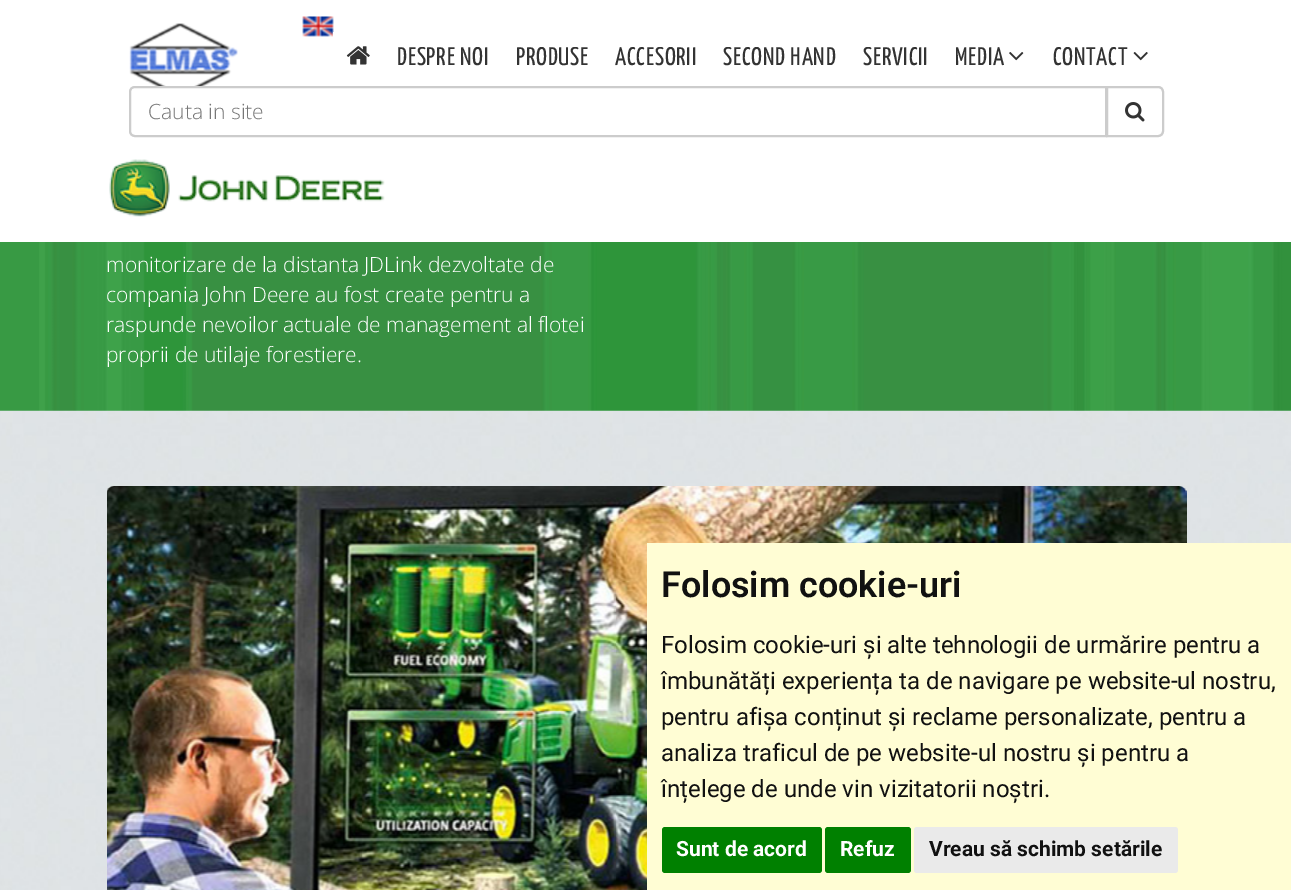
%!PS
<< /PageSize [1291 890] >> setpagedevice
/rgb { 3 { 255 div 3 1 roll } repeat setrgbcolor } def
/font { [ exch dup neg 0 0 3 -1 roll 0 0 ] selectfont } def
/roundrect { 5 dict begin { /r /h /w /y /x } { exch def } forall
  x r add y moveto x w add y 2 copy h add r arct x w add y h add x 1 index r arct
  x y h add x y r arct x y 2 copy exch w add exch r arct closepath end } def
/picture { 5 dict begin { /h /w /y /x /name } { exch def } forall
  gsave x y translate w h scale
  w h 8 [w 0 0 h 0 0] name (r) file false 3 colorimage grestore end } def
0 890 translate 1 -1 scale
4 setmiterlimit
255 255 255 rgb
0 0 1291 890 rectfill
(img/1.rgb) 129 23 109 63 picture
(img/2.rgb) 302 16 32 21 picture
333 32 1 5 rectfill
(img/3.rgb) 346 46 24 19 picture
(img/4.rgb) 1009 52 15 9 picture
(img/5.rgb) 1133 52 15 9 picture
204 204 204 rgb
2 setlinewidth
1107 87 moveto 1158 87 lineto 1161 87 1163 89 1163 92 curveto 1163 131 lineto 1163 134 1161 136 1158 136 curveto 1107 136 lineto closepath stroke
255 255 255 rgb
135 87 moveto 1106 87 lineto 1106 136 lineto 135 136 lineto 132 136 130 134 130 131 curveto 130 92 lineto 130 89 132 87 135 87 curveto closepath gsave fill grestore
204 204 204 rgb
stroke
(img/6.rgb) 1125 102 20 20 picture
(img/7.rgb) 109 159 276 58 picture
56 154 68 rgb
0 242 39 169 rectfill
(img/8.rgb) 39 242 1252 169 picture
(img/9.rgb) 0 410 1291 480 picture
255 255 255 rgb
107 486 1080 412 8 roundrect fill
(img/10.rgb) 107 486 1080 404 picture
255 253 212 rgb
647 543 644 347 rectfill
0 128 0 rgb
662 827 160 46 3 roundrect fill
825 827 86 46 3 roundrect fill
234 234 234 rgb
914 827 264 46 3 roundrect fill
/YanoneKaffeesatz-Regular 25.5 font
51 51 51 rgb
397 65 moveto 0.75 0 (DESPRE NOI) ashow
516 65 moveto 0.75 0 (PRODUSE) ashow
615 65 moveto 0.75 0 (ACCESORII) ashow
723 65 moveto 0.75 0 (SECOND HAND) ashow
863 65 moveto 0.75 0 (SERVICII) ashow
955 65 moveto 0.75 0 (MEDIA) ashow
1053 65 moveto 0.75 0 (CONTACT) ashow
/OpenSans-Light 21 font
119 119 119 rgb
148 119 moveto (Cauta in site) show
255 255 255 rgb
[
  [(monitorizare de la distanta JDLink dezvoltate de) 106 272]
  [(compania John Deere au fost create pentru a) 106 302]
  [(raspunde nevoilor actuale de management al flotei) 106 332]
  [(proprii de utilaje forestiere.) 106 362]
] { aload pop moveto show } forall
/Roboto-SemiBold 36 font
17 17 17 rgb
661 597 moveto (Folosim cookie-uri) show
/Roboto-Regular 24 font
[
  [(Folosim cookie-uri și alte tehnologii de urmărire pentru a) 661 653]
  [(îmbunătăți experiența ta de navigare pe website-ul nostru,) 661 689]
  [(pentru afișa conținut și reclame personalizate, pentru a) 661 725]
  [(analiza traficul de pe website-ul nostru și pentru a) 661 761]
  [(înțelege de unde vin vizitatorii noștri.) 661 797]
] { aload pop moveto show } forall
/Roboto-Bold 21 font
255 255 255 rgb
676 856 moveto (Sunt de acord) show
840 856 moveto (Refuz) show
17 17 17 rgb
929 856 moveto (Vreau să schimb setările) show
showpage
